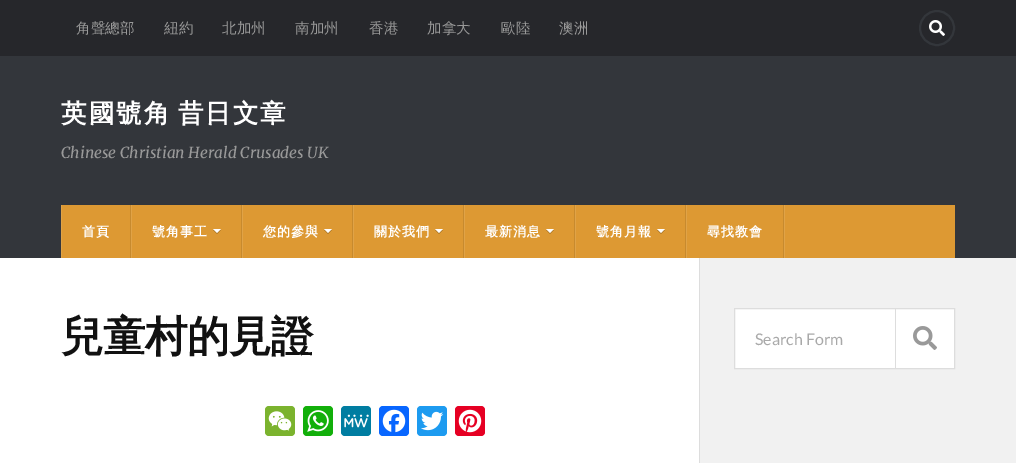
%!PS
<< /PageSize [1016 463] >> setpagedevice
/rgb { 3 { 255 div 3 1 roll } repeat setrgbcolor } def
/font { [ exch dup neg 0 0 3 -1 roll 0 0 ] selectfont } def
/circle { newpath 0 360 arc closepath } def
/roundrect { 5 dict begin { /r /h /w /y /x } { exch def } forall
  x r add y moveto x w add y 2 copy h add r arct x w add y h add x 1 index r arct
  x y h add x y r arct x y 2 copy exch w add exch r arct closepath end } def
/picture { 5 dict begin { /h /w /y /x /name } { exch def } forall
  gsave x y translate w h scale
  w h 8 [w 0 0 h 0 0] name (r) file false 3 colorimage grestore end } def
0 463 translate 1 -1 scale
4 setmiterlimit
241 241 241 rgb
0 0 1016 463 rectfill
38 39 43 rgb
0 0 1016 56 rectfill
51 54 59 rgb
2 setlinewidth
937 28 17 circle stroke
(img/1.rgb) 929 20 16 16 picture
[
  [0 56 1016 202 51 54 59]
  [62 205 893 53 221 153 51]
  [130 205 1 53 199 138 46]
  [61 205 1 53 224 163 71]
  [241 205 1 53 199 138 46]
  [131 205 1 53 224 163 71]
] { aload pop rgb rectfill } forall
166 115 38 rgb
213 230 moveto 221 230 lineto 217 234 lineto closepath fill
255 255 255 rgb
213 229 moveto 221 229 lineto 217 233 lineto closepath fill
199 138 46 rgb
352 205 1 53 rectfill
224 163 71 rgb
242 205 1 53 rectfill
166 115 38 rgb
324 230 moveto 332 230 lineto 328 234 lineto closepath fill
255 255 255 rgb
324 229 moveto 332 229 lineto 328 233 lineto closepath fill
199 138 46 rgb
463 205 1 53 rectfill
224 163 71 rgb
353 205 1 53 rectfill
166 115 38 rgb
435 230 moveto 443 230 lineto 439 234 lineto closepath fill
255 255 255 rgb
435 229 moveto 443 229 lineto 439 233 lineto closepath fill
199 138 46 rgb
574 205 1 53 rectfill
224 163 71 rgb
464 205 1 53 rectfill
166 115 38 rgb
546 230 moveto 554 230 lineto 550 234 lineto closepath fill
255 255 255 rgb
546 229 moveto 554 229 lineto 550 233 lineto closepath fill
199 138 46 rgb
685 205 1 53 rectfill
224 163 71 rgb
575 205 1 53 rectfill
166 115 38 rgb
657 230 moveto 665 230 lineto 661 234 lineto closepath fill
255 255 255 rgb
657 229 moveto 665 229 lineto 661 233 lineto closepath fill
[
  [783 205 1 53 199 138 46]
  [686 205 1 53 224 163 71]
  [784 205 1 53 224 163 71]
  [0 258 699 205 255 255 255]
] { aload pop rgb rectfill } forall
123 179 46 rgb
265 406 30 30 4 roundrect fill
(img/2.rgb) 268 411 24 20 picture
18 175 10 rgb
303 406 30 30 4 roundrect fill
(img/3.rgb) 307 410 22 22 picture
0 125 161 rgb
341 406 30 30 4 roundrect fill
(img/4.rgb) 344 414 25 14 picture
8 102 255 rgb
379 406 30 30 4 roundrect fill
(img/5.rgb) 382 409 24 24 picture
29 155 240 rgb
417 406 30 30 4 roundrect fill
(img/6.rgb) 421 411 23 20 picture
230 0 35 rgb
455 406 30 30 4 roundrect fill
(img/7.rgb) 458 409 24 24 picture
221 221 221 rgb
699 258 1 205 rectfill
255 255 255 rgb
734.5 308.5 moveto 954.5 308.5 lineto 954.5 368.5 lineto 734.5 368.5 lineto closepath gsave fill grestore
221 221 221 rgb
1 setlinewidth
stroke
895 309 1 59 rectfill
(img/8.rgb) 913 326 24 24 picture
/WenQuanYiZenHei-Medium 14.5 font
153 153 153 rgb
[
  [(角聲總部) 76 33]
  [(紐約) 164 33]
  [(北加州) 222 33]
  [(南加州) 295 33]
  [(香港) 369 33]
  [(加拿大) 427 33]
  [(歐陸) 501 33]
  [(澳洲) 559 33]
] { aload pop moveto show } forall
/WenQuanYiZenHei-Bold 25.5 font
255 255 255 rgb
61 122 moveto -3 0 32 2 0 (英國號角 昔日文章) awidthshow
/Merriweather-Italic 15.25 font
153 153 153 rgb
61 158 moveto (Chinese Christian Herald Crusades UK) show
/WenQuanYiZenHei-Bold 13 font
255 255 255 rgb
82 236 moveto 1 0 (首頁) ashow
152 236 moveto 1 0 (號角事工) ashow
263 236 moveto 1 0 (您的參與) ashow
374 236 moveto 1 0 (關於我們) ashow
485 236 moveto 1 0 (最新消息) ashow
596 236 moveto 1 0 (號角月報) ashow
707 236 moveto 1 0 (尋找教會) ashow
/WenQuanYiZenHei-Bold 42.5 font
17 17 17 rgb
61 351 moveto -0.5 0 (兒童村的見證) ashow
/Lato-Regular 16 font
169 169 169 rgb
755 345 moveto (Search Form) show
showpage
